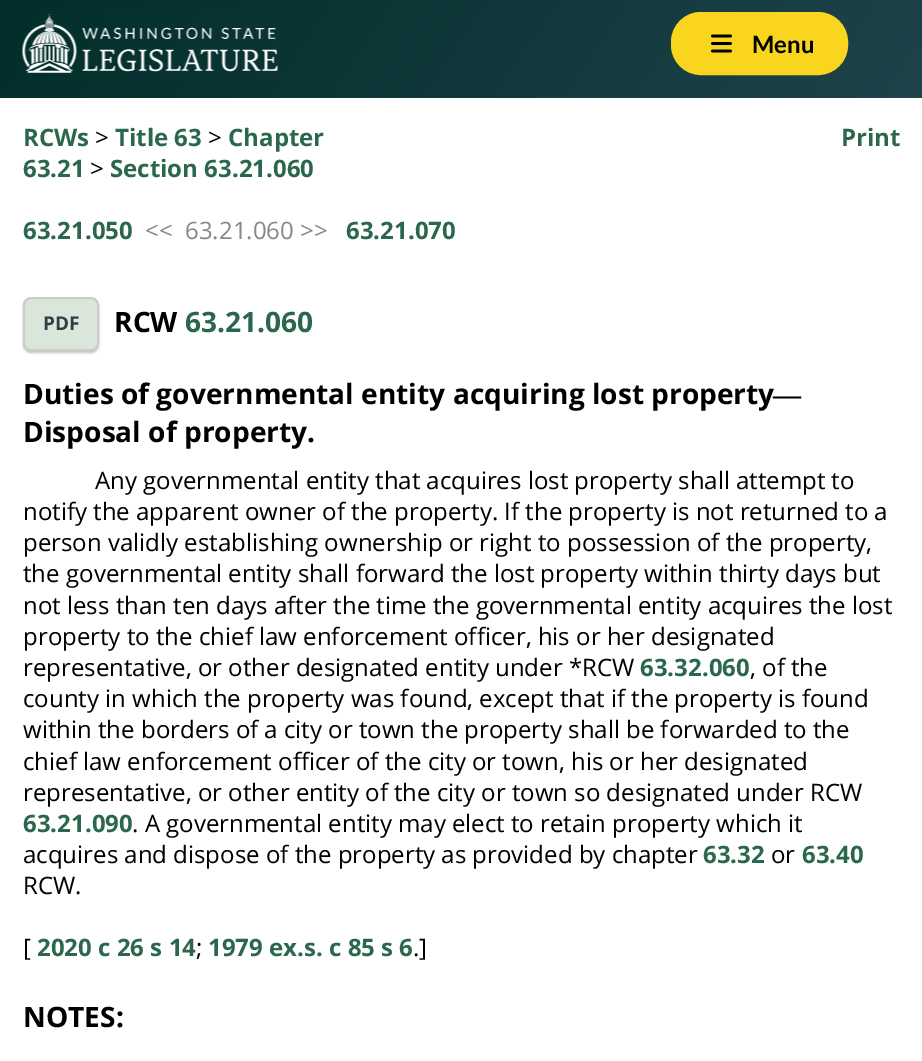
%!PS
<< /PageSize [922 1061] /PageUsesTransparency true >> setpagedevice
/rgb { 3 { 255 div 3 1 roll } repeat setrgbcolor } def
/font { [ exch dup neg 0 0 3 -1 roll 0 0 ] selectfont } def
/alpha { dup .setfillconstantalpha .setstrokeconstantalpha } def
/roundrect { 5 dict begin { /r /h /w /y /x } { exch def } forall
  x r add y moveto x w add y 2 copy h add r arct x w add y h add x 1 index r arct
  x y h add x y r arct x y 2 copy exch w add exch r arct closepath end } def
/shadow { 12 dict begin { /a /b /q /h /w /y /x } { exch def } forall gsave /was 0 def
  9 -2 -9 { dup b mul 4 div /e exch def 1 sub .425 mul 2.718 exch exp 1 add a .99 .min exch div /now exch def
    1 1 now sub 1 was sub div sub alpha /was now def
    w h .min e 2 mul add 0 gt { x e sub y e sub w e 2 mul add h e 2 mul add
      q e add b .6 mul add w h .min 2 div e add .min 0 .max roundrect fill } if } for grestore end } def
/picture { 5 dict begin { /h /w /y /x /name } { exch def } forall
  gsave x y translate w h scale
  w h 8 [w 0 0 h 0 0] name (r) file false 3 colorimage grestore end } def
0 .pushpdf14devicefilter
0 1061 translate 1 -1 scale
4 setmiterlimit
255 255 255 rgb
0 0 922 1061 rectfill
gsave 0 0 moveto 922 0 lineto 922 98 lineto 0 98 lineto closepath clip newpath
<< /ShadingType 2 /ColorSpace /DeviceRGB /Coords [801 278 122 -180] /Extend [true true] /Function << /FunctionType 2 /Domain [0 1] /C0 [0.118 0.263 0.29] /C1 [0.004 0.18 0.165] /N 1 >> >> shfill grestore
(img/1.rgb) 22 14 256 59 picture
250 213 29 rgb
672.5 13.5 174 60 28.5 roundrect gsave fill grestore
3 setlinewidth
stroke
(img/2.rgb) 711 34 21 19 picture
51 51 51 rgb
23 299 76 54 8 1 0.3 shadow
219 230 219 rgb
24 298 74 52 7 roundrect gsave fill grestore
204 204 204 rgb
2 setlinewidth
stroke
/Lato-Bold 24 font
0 0 0 rgb
752 53 moveto (Menu) show
/OpenSans-Bold 24 font
43 103 77 rgb
23 146 moveto (RCWs) show
/OpenSans-Regular 24 font
0 0 0 rgb
95 146 moveto (>) show
/OpenSans-Bold 24 font
43 103 77 rgb
115 146 moveto (Title 63) show
/OpenSans-Regular 24 font
0 0 0 rgb
208 146 moveto (>) show
/OpenSans-Bold 24 font
43 103 77 rgb
228 146 moveto (Chapter) show
23 177 moveto (63.21) show
/OpenSans-Regular 24 font
0 0 0 rgb
90 177 moveto (>) show
/OpenSans-Bold 24 font
43 103 77 rgb
[
  [(Section 63.21.060) 110 177]
  [(Print) 841 146]
  [(63.21.050) 23 239]
] { aload pop moveto show } forall
/OpenSans-Regular 24 font
136 136 136 rgb
145 239 moveto (<<) show
185 239 moveto (63.21.060 >>) show
/OpenSans-Bold 24 font
43 103 77 rgb
346 239 moveto (63.21.070) show
/OpenSans-Bold 19 font
47 62 70 rgb
43 330 moveto (PDF) show
/OpenSans-Bold 28.1 font
0 0 0 rgb
114 332 moveto (RCW) show
43 103 77 rgb
185 332 moveto (63.21.060) show
0 0 0 rgb
23 404 moveto (Duties of governmental entity acquiring lost property) show
/LiberationSerif-Bold 28.1 font
773 404 moveto (—) show
/OpenSans-Bold 28.1 font
23 442 moveto (Disposal of property.) show
/OpenSans-Regular 24 font
[
  [(Any governmental entity that acquires lost property shall attempt to) 95 489]
  [(notify the apparent owner of the property. If the property is not returned to a) 23 520]
  [(person validly establishing ownership or right to possession of the property,) 23 551]
  [(the governmental entity shall forward the lost property within thirty days but) 23 582]
  [(not less than ten days after the time the governmental entity acquires the lost) 23 614]
  [(property to the chief law enforcement officer, his or her designated) 23 645]
  [(representative, or other designated entity under *RCW) 23 676]
] { aload pop moveto show } forall
/OpenSans-Bold 24 font
43 103 77 rgb
640 676 moveto (63.32.060) show
/OpenSans-Regular 24 font
0 0 0 rgb
[
  [(, of the) 750 676]
  [(county in which the property was found, except that if the property is found) 23 707]
  [(within the borders of a city or town the property shall be forwarded to the) 23 738]
  [(chief law enforcement officer of the city or town, his or her designated) 23 770]
  [(representative, or other entity of the city or town so designated under RCW) 23 801]
] { aload pop moveto show } forall
/OpenSans-Bold 24 font
43 103 77 rgb
23 832 moveto (63.21.090) show
/OpenSans-Regular 24 font
0 0 0 rgb
132 832 moveto (. A governmental entity may elect to retain property which it) show
23 863 moveto (acquires and dispose of the property as provided by chapter) show
/OpenSans-Bold 24 font
43 103 77 rgb
703 863 moveto (63.32) show
/OpenSans-Regular 24 font
0 0 0 rgb
771 863 moveto (or) show
/OpenSans-Bold 24 font
43 103 77 rgb
802 863 moveto (63.40) show
/OpenSans-Regular 24 font
0 0 0 rgb
23 894 moveto (RCW.) show
23 956 moveto ([) show
/OpenSans-Bold 24 font
43 103 77 rgb
37 956 moveto (2020 c 26 s 14) show
/OpenSans-Regular 24 font
0 0 0 rgb
196 956 moveto (;) show
/OpenSans-Bold 24 font
43 103 77 rgb
208 956 moveto (1979 ex.s. c 85 s 6) show
/OpenSans-Regular 24 font
0 0 0 rgb
413 956 moveto (.]) show
/OpenSans-Bold 28.1 font
23 1027 moveto (NOTES:) show
.poppdf14devicefilter showpage
